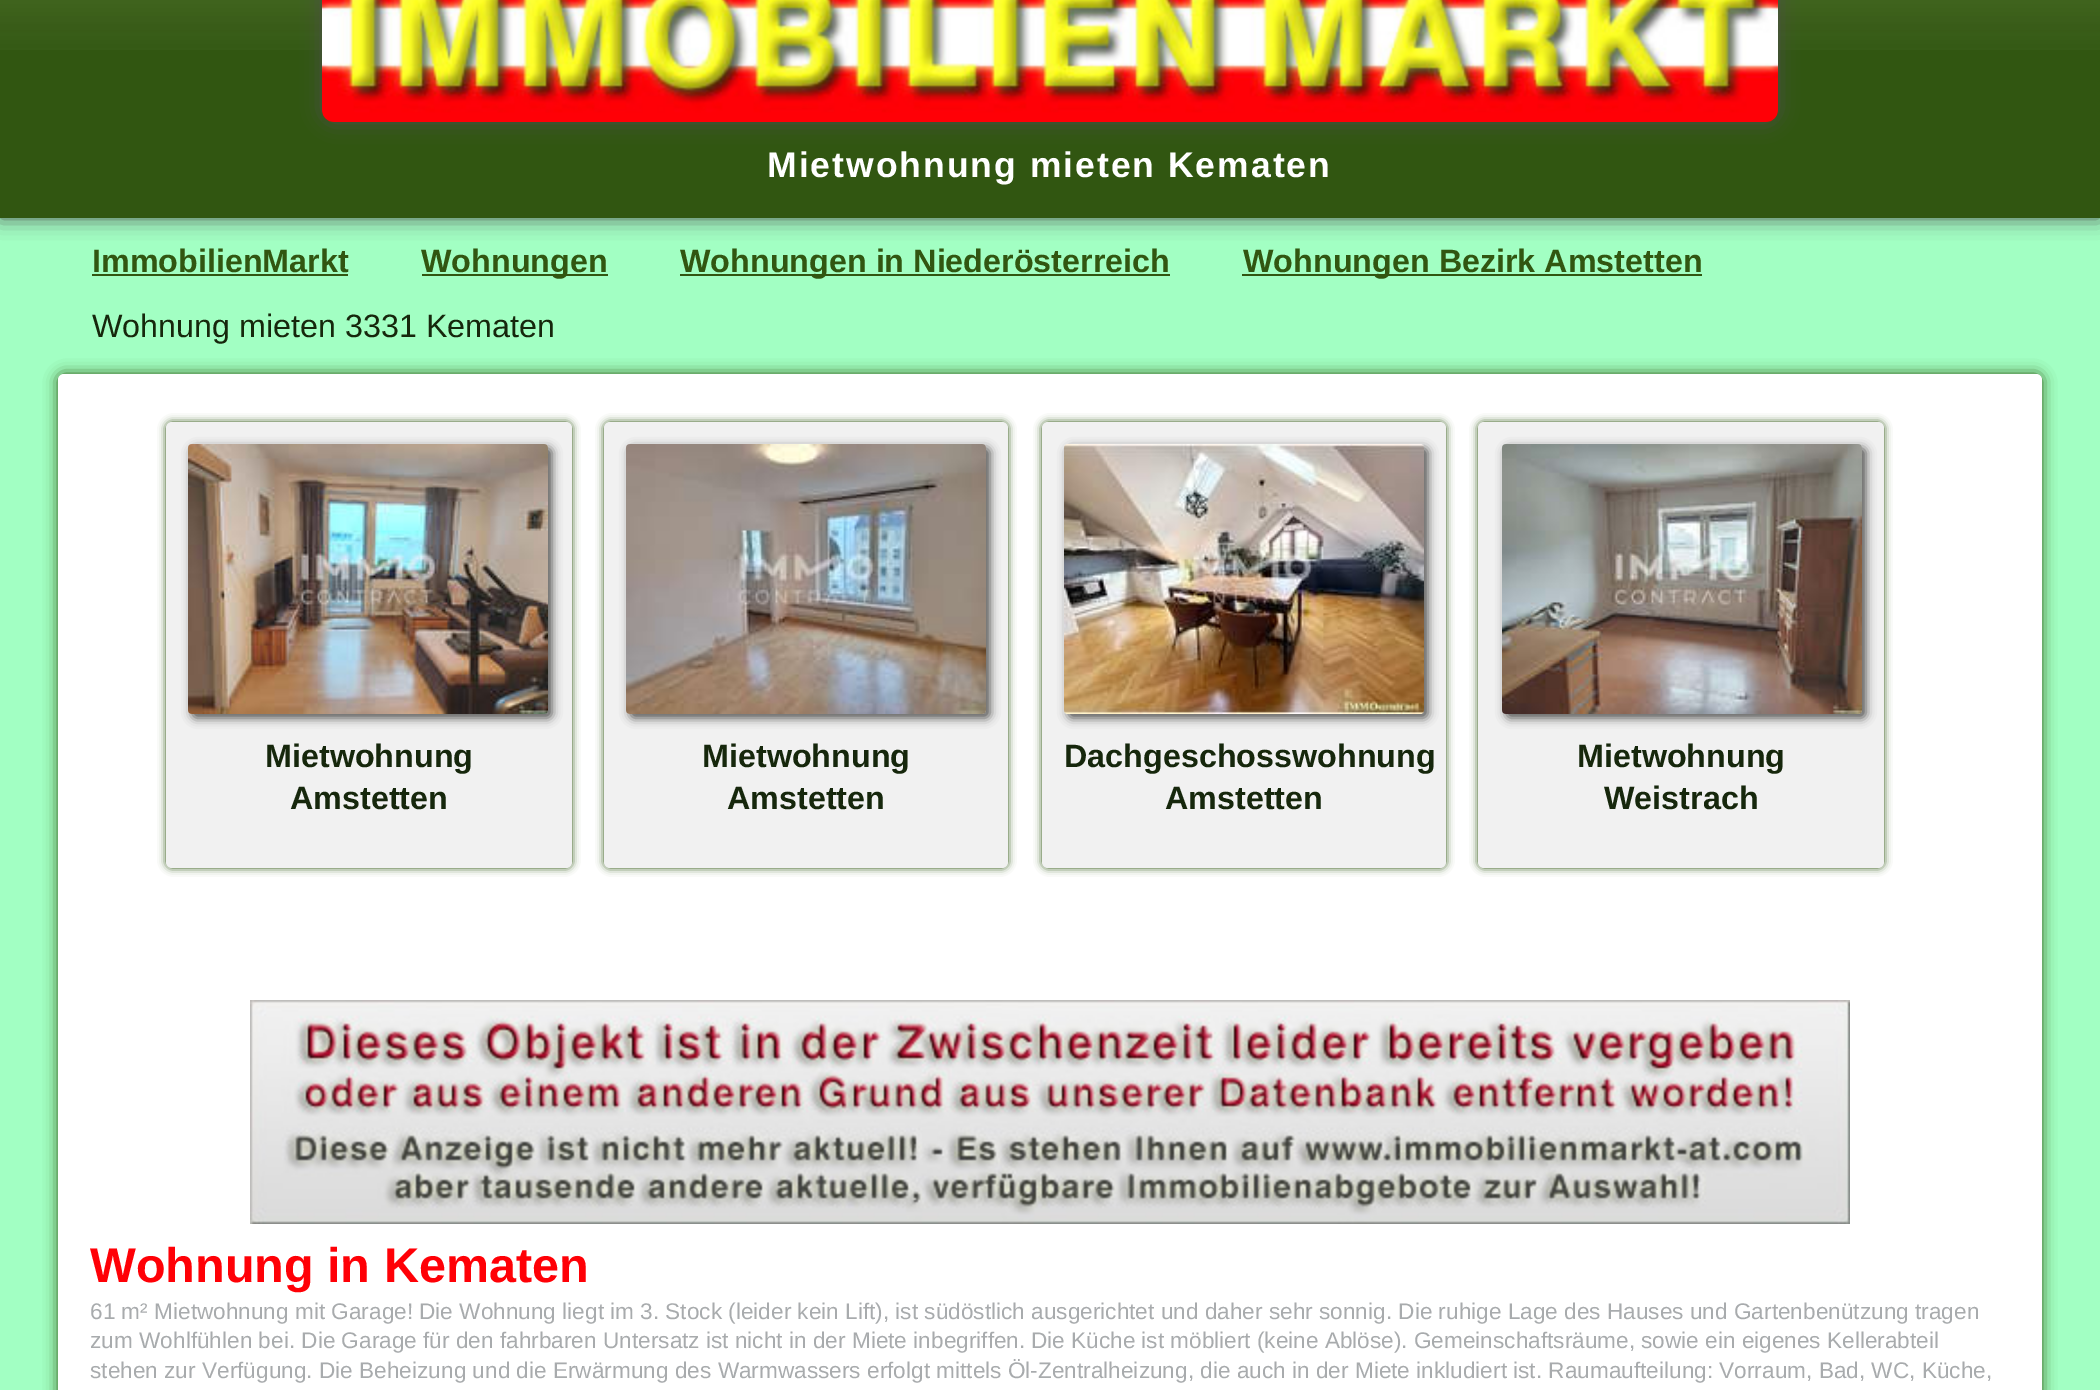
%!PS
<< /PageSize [2100 1390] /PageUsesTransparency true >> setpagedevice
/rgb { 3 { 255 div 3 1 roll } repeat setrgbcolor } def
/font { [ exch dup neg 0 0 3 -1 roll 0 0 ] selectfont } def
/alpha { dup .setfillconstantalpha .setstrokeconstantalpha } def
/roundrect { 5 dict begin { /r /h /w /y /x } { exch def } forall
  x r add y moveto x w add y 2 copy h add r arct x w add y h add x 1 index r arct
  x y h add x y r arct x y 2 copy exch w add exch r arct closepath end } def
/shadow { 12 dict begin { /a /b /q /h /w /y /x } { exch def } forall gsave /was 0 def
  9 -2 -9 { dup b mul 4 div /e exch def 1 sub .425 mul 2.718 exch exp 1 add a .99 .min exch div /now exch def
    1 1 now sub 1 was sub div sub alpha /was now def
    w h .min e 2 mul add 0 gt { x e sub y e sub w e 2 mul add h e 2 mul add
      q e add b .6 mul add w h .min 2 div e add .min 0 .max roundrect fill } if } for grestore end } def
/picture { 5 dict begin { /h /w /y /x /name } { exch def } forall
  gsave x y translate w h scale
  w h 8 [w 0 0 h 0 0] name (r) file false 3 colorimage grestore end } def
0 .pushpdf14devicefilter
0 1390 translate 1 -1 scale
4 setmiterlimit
162 255 195 rgb
0 0 2100 1390 rectfill
78 78 77 rgb
0 -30 2100 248 0 10 1 shadow
49 86 17 rgb
0 50 2100 168 rectfill
(img/1.rgb) 0 0 2100 50 picture
78 78 77 rgb
322 -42 1456 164 12 10 1 shadow
(img/2.rgb) 322 0 1456 122 picture
[
  [92 274 256 2 49 86 17]
  [422 274 186 2 49 86 17]
  [680 274 490 2 49 86 17]
  [1242 274 460 2 49 86 17]
] { aload pop rgb rectfill } forall
58 374 1984 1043 6 7 1 shadow
255 255 255 rgb
58 374 1984 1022 6 roundrect fill
49 86 17 rgb
166 422 406 446 6 4 1 shadow
241 241 241 rgb
166 422 406 446 6 roundrect fill
78 78 77 rgb
192 448 360 270 4 5 1 shadow
(img/3.rgb) 188 444 360 270 picture
49 86 17 rgb
604 422 404 446 6 4 1 shadow
241 241 241 rgb
604 422 404 446 6 roundrect fill
78 78 77 rgb
630 448 360 270 4 5 1 shadow
(img/4.rgb) 626 444 360 270 picture
49 86 17 rgb
1042 422 404 446 6 4 1 shadow
241 241 241 rgb
1042 422 404 446 6 roundrect fill
78 78 77 rgb
1068 448 360 270 4 5 1 shadow
(img/5.rgb) 1064 444 360 270 picture
49 86 17 rgb
1478 422 406 446 6 4 1 shadow
241 241 241 rgb
1478 422 406 446 6 roundrect fill
78 78 77 rgb
1506 448 360 270 4 5 1 shadow
(img/6.rgb) 1502 444 360 270 picture
(img/7.rgb) 250 1000 1600 224 picture
/LiberationSans-Bold 35.5 font
255 255 255 rgb
767 177 moveto 2 0 (Mietwohnung mieten Kematen) ashow
/LiberationSans-Bold 32.3 font
49 86 17 rgb
[
  [(ImmobilienMarkt) 92 272]
  [(Wohnungen) 421 272]
  [(Wohnungen in Niederösterreich) 680 272]
  [(Wohnungen Bezirk Amstetten) 1243 272]
] { aload pop moveto show } forall
/LiberationSans-Regular 32.3 font
22 39 12 rgb
92 337 moveto (Wohnung mieten 3331 Kematen) show
/LiberationSans-Bold 32.3 font
[
  [(Mietwohnung) 265 767]
  [(Amstetten) 290 809]
  [(Mietwohnung) 702 767]
  [(Amstetten) 727 809]
  [(Dachgeschosswohnung) 1064 767]
  [(Amstetten) 1165 809]
  [(Mietwohnung) 1577 767]
  [(Weistrach) 1604 809]
] { aload pop moveto show } forall
/LiberationSans-Bold 48.5 font
255 0 6 rgb
90 1282 moveto (Wohnung in Kematen) show
/LiberationSans-Regular 22.62 font
168 171 173 rgb
[
  [(61 m² Mietwohnung mit Garage!) 90 1319]
  [(Die Wohnung liegt im 3. Stock \(leider kein Lift\), ist südöstlich ausgerichtet und daher sehr sonnig. Die ruhige Lage des Hauses und Gartenbenützung tragen) 419 1319]
  [(zum Wohlfühlen bei. Die Garage für den fahrbaren Untersatz ist nicht in der Miete inbegriffen.) 90 1348]
] { aload pop moveto show } forall
1031 1348 moveto -0.1 0 32 (Die Küche ist möbliert \(keine Ablöse\). Gemeinschaftsräume, sowie ein eigenes Kellerabteil) widthshow
90 1378 moveto (stehen zur Verfügung.) show
319 1378 moveto (Die Beheizung und die Erwärmung des Warmwassers erfolgt mittels Öl-Zentralheizung, die auch in der Miete inkludiert ist. Raumaufteilung: Vorraum, Bad, WC, Küche,) show
.poppdf14devicefilter showpage
